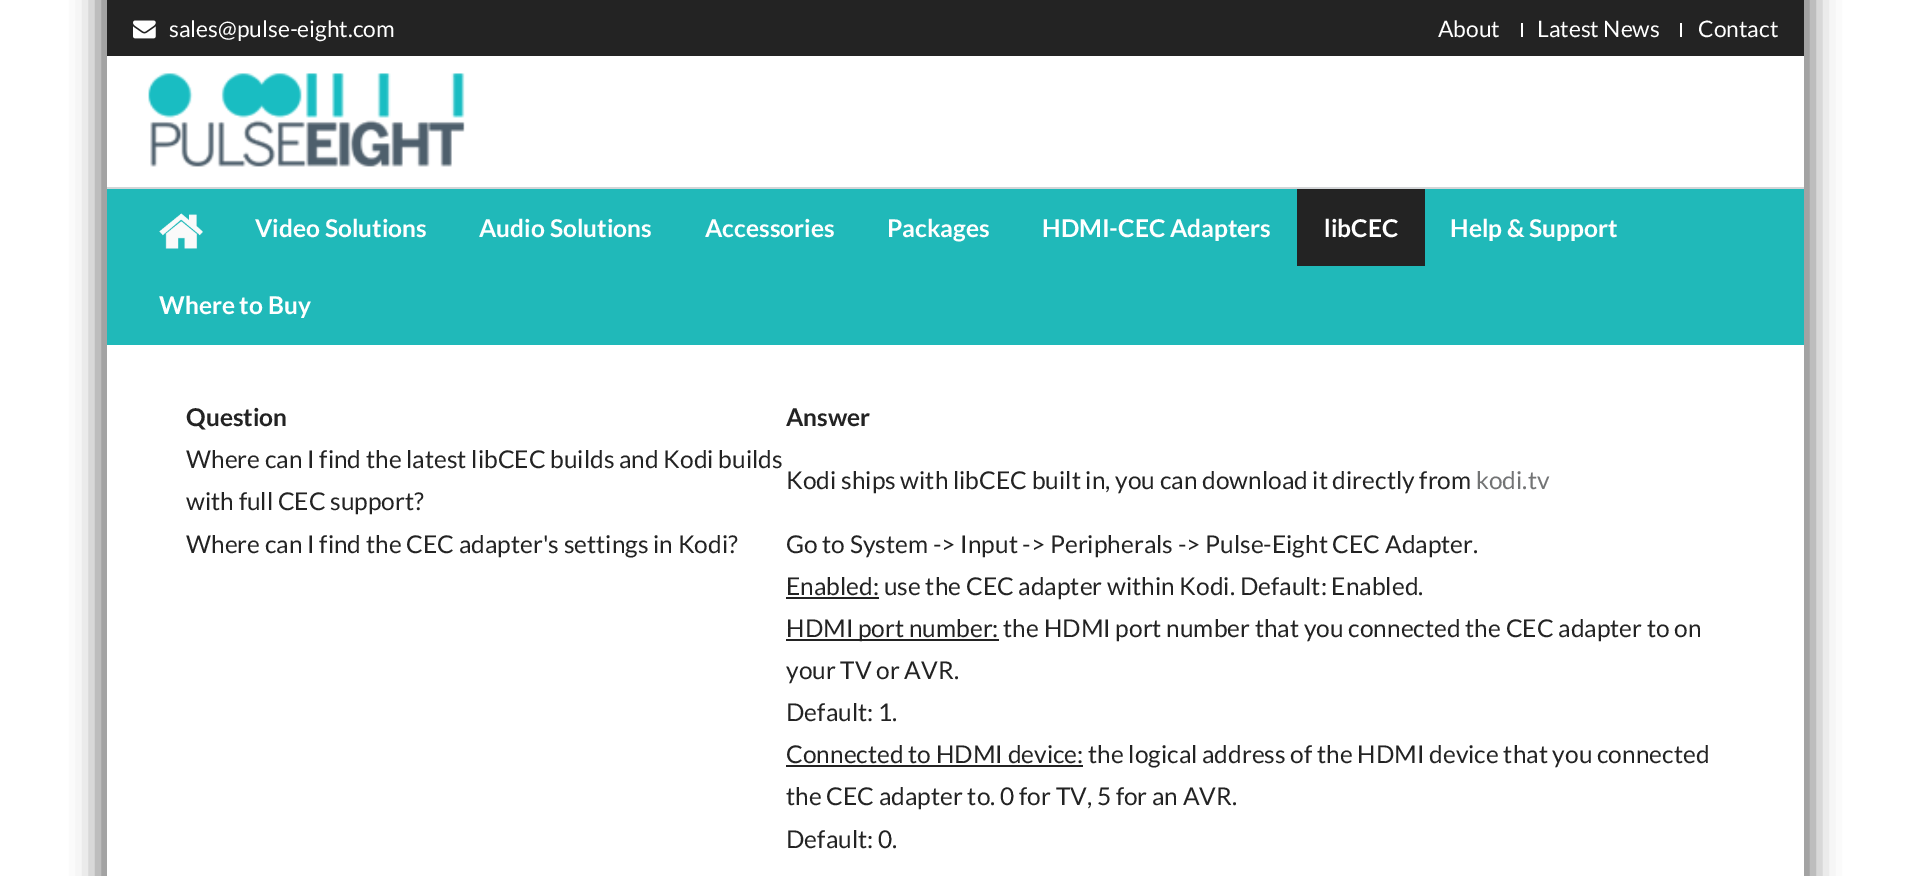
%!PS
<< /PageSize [1910 876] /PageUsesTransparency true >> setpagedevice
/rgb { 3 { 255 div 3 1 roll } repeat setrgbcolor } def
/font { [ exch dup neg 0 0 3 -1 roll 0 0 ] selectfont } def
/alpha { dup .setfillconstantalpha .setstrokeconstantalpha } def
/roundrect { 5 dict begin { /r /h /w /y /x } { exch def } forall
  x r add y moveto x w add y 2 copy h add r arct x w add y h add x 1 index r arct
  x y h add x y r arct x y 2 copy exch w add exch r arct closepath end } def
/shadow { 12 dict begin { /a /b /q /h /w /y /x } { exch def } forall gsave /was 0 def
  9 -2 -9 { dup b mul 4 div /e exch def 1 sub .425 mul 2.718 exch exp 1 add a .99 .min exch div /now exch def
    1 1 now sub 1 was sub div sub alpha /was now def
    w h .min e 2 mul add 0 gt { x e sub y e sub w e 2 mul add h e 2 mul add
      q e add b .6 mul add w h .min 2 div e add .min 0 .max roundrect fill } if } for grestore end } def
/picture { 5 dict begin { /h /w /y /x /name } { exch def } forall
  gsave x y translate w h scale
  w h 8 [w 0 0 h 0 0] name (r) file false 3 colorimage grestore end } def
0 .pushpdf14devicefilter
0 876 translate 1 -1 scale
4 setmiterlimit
255 255 255 rgb
0 0 1910 876 rectfill
gsave
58 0 moveto 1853 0 lineto 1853 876 lineto 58 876 lineto closepath 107 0 moveto 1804 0 lineto 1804 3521 lineto 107 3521 lineto closepath eoclip newpath
122 122 122 rgb
98 -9 1715 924 0 13 1 shadow
grestore
35 35 35 rgb
107 0 1697 56 rectfill
(img/1.rgb) 133 20 23 19 picture
255 255 255 rgb
1521 23 2 14 rectfill
1680 23 2 14 rectfill
(img/2.rgb) 148 73 317 94 picture
32 185 185 rgb
107 189 1697 156 rectfill
211 213 215 rgb
107 187 1697 2 rectfill
(img/3.rgb) 159 213 44 36 picture
[
  [1297 189 128 77 35 35 35]
  [786 597 93 2 35 35 35]
  [786 639 213 2 35 35 35]
  [786 765 297 2 35 35 35]
] { aload pop rgb rectfill } forall
/Lato-Regular 22.75 font
255 255 255 rgb
[
  [(sales@pulse-eight.com) 169 37]
  [(About) 1438 37]
  [(Latest News) 1537 37]
  [(Contact) 1698 37]
] { aload pop moveto show } forall
/Lato-Bold 24.5 font
[
  [(Video Solutions) 255 237]
  [(Audio Solutions) 479 237]
  [(Accessories) 705 237]
  [(Packages) 887 237]
  [(HDMI-CEC Adapters) 1042 237]
  [(libCEC) 1324 237]
  [(Help & Support) 1450 237]
  [(Where to Buy) 159 314]
] { aload pop moveto show } forall
35 35 35 rgb
186 426 moveto (Question) show
786 426 moveto (Answer) show
/Lato-Regular 24.5 font
[
  [(Where can I find the latest libCEC builds and Kodi builds) 186 468]
  [(with full CEC support?) 186 510]
  [(Kodi ships with libCEC built in, you can download it directly from) 786 489]
] { aload pop moveto show } forall
115 116 117 rgb
1476 489 moveto (kodi.tv) show
35 35 35 rgb
[
  [(Where can I find the CEC adapter's settings in Kodi?) 186 553]
  [(Go to System -> Input -> Peripherals -> Pulse-Eight CEC Adapter.) 786 553]
  [(Enabled: use the CEC adapter within Kodi. Default: Enabled.) 786 595]
  [(HDMI port number: the HDMI port number that you connected the CEC adapter to on) 786 637]
  [(your TV or AVR.) 786 679]
  [(Default: 1.) 786 721]
  [(Connected to HDMI device: the logical address of the HDMI device that you connected) 786 763]
  [(the CEC adapter to. 0 for TV, 5 for an AVR.) 786 805]
  [(Default: 0.) 786 848]
] { aload pop moveto show } forall
.poppdf14devicefilter showpage
